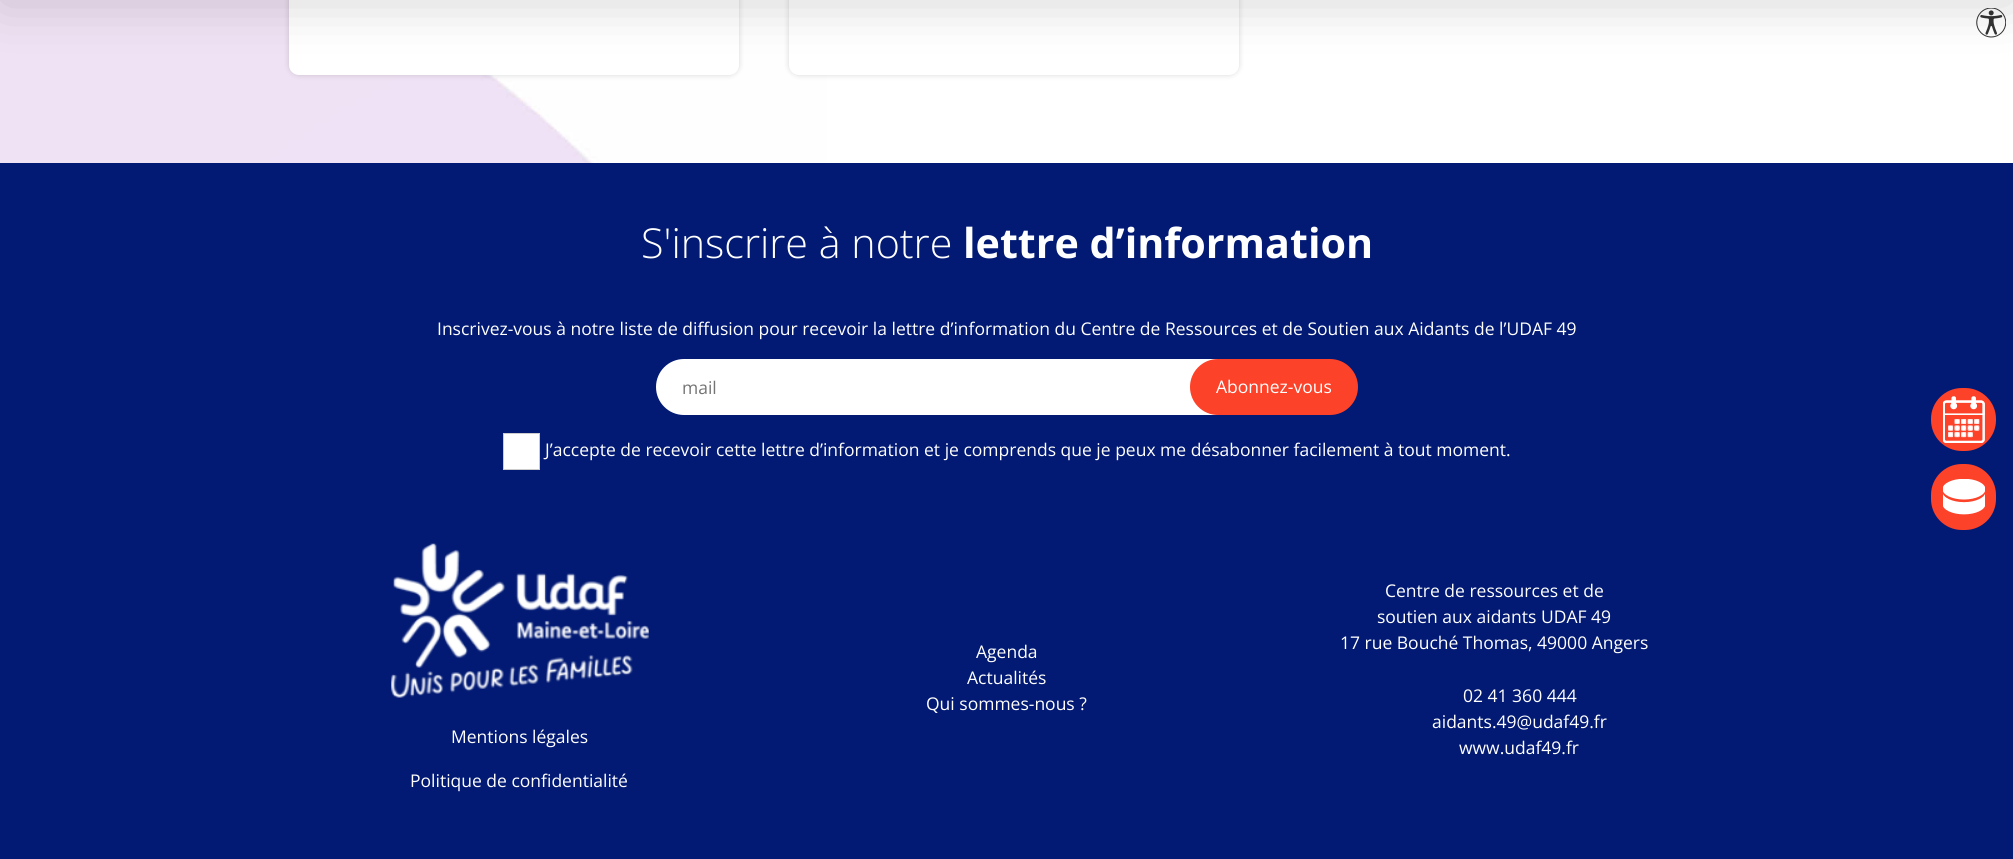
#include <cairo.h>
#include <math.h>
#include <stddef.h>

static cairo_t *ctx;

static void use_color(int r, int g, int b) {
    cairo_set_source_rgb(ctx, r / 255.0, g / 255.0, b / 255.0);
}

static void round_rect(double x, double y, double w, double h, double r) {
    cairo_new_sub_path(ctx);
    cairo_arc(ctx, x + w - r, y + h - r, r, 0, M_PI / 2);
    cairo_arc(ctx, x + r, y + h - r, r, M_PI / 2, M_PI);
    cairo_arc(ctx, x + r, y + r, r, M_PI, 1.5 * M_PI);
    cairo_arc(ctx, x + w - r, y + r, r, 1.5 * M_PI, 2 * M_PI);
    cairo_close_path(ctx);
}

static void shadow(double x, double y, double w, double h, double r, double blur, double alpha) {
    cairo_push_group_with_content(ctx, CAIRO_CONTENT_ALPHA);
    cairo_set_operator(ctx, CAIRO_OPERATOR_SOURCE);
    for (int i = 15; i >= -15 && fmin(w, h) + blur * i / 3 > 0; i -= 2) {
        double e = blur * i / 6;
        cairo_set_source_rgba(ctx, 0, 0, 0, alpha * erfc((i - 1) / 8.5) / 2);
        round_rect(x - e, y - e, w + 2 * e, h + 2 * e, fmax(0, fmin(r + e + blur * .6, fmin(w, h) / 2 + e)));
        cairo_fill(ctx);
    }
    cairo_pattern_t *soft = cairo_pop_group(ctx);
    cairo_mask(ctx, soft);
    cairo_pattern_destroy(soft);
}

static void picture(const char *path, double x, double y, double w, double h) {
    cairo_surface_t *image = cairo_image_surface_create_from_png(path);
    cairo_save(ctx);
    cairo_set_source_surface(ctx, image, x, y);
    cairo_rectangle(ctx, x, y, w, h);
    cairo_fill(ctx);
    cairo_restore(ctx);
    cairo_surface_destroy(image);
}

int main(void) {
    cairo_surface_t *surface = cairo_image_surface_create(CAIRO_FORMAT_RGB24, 2013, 859);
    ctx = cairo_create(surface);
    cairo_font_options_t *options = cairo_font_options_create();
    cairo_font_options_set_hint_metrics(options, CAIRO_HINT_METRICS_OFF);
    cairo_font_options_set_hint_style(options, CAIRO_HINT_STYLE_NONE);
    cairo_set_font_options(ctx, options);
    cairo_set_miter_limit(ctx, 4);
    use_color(255, 255, 255);
    cairo_paint(ctx);
    picture("img1.png", 0, 0, 827, 163);
    use_color(0, 0, 0);
    shadow(289, -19, 450, 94, 10, 3, 0.15);
    use_color(255, 255, 255);
    round_rect(289, -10, 450, 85, 10);
    cairo_fill(ctx);
    use_color(0, 0, 0);
    shadow(789, -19, 450, 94, 10, 3, 0.15);
    use_color(255, 255, 255);
    round_rect(789, -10, 450, 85, 10);
    cairo_fill(ctx);
    picture("img2.png", 1976, 8, 30, 30);
    use_color(0, 0, 0);
    shadow(0, -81, 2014, 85, 0, 27, 0.16);
    use_color(2, 26, 115);
    cairo_rectangle(ctx, 0, 163, 2013, 696);
    cairo_fill(ctx);
    cairo_select_font_face(ctx, "Open Sans Light", CAIRO_FONT_SLANT_NORMAL, CAIRO_FONT_WEIGHT_NORMAL);
    cairo_set_font_size(ctx, 41.25);
    use_color(255, 255, 255);
    cairo_move_to(ctx, 641, 258);
    cairo_show_text(ctx, "S'inscrire à notre");
    cairo_select_font_face(ctx, "Open Sans", CAIRO_FONT_SLANT_NORMAL, CAIRO_FONT_WEIGHT_BOLD);
    cairo_move_to(ctx, 963, 258);
    cairo_show_text(ctx, "lettre d’information");
    cairo_select_font_face(ctx, "Open Sans", CAIRO_FONT_SLANT_NORMAL, CAIRO_FONT_WEIGHT_NORMAL);
    cairo_set_font_size(ctx, 17.5);
    cairo_move_to(ctx, 437, 335);
    cairo_show_text(ctx, "Inscrivez-vous à notre liste de diffusion pour recevoir la lettre d’information du Centre de Ressources et de Soutien aux Aidants de l’UDAF 49");
    round_rect(656, 359, 604, 56, 28);
    cairo_fill(ctx);
    use_color(116, 116, 116);
    cairo_move_to(ctx, 682, 394);
    cairo_show_text(ctx, "mail");
    use_color(252, 66, 41);
    round_rect(1190, 359, 168, 56, 28);
    cairo_fill(ctx);
    use_color(255, 255, 255);
    cairo_move_to(ctx, 1216, 393);
    cairo_show_text(ctx, "Abonnez-vous");
    cairo_rectangle(ctx, 503.5, 433.5, 36, 36);
    cairo_fill_preserve(ctx);
    use_color(204, 204, 204);
    cairo_set_line_width(ctx, 1);
    cairo_stroke(ctx);
    use_color(255, 255, 255);
    cairo_move_to(ctx, 545, 456);
    cairo_show_text(ctx, "J’accepte de recevoir cette lettre d’information et je comprends que je peux me désabonner facilement à tout moment.");
    cairo_move_to(ctx, 976, 658);
    cairo_show_text(ctx, "Agenda");
    cairo_move_to(ctx, 967, 684);
    cairo_show_text(ctx, "Actualités");
    cairo_move_to(ctx, 926, 710);
    cairo_show_text(ctx, "Qui sommes-nous ?");
    cairo_move_to(ctx, 1385, 597);
    cairo_show_text(ctx, "Centre de ressources et de");
    cairo_move_to(ctx, 1377, 623);
    cairo_show_text(ctx, "soutien aux aidants UDAF 49");
    cairo_move_to(ctx, 1340, 649);
    cairo_show_text(ctx, "17 rue Bouché Thomas, 49000 Angers");
    cairo_move_to(ctx, 1463, 702);
    cairo_show_text(ctx, "02 41 360 444");
    cairo_move_to(ctx, 1432, 728);
    cairo_show_text(ctx, "aidants.49@udaf49.fr");
    cairo_move_to(ctx, 1459, 754);
    cairo_show_text(ctx, "www.udaf49.fr");
    picture("img3.png", 391, 543, 258, 155);
    cairo_move_to(ctx, 451, 743);
    cairo_show_text(ctx, "Mentions légales");
    cairo_move_to(ctx, 410, 787);
    cairo_show_text(ctx, "Politique de confidentialité");
    use_color(252, 66, 41);
    round_rect(1931, 388, 65, 63, 31);
    cairo_fill(ctx);
    picture("img4.png", 1943, 396, 42, 47);
    round_rect(1931, 464, 65, 66, 31);
    cairo_fill(ctx);
    picture("img5.png", 1943, 479, 42, 36);
    cairo_surface_write_to_png(surface, "result.png");
    cairo_font_options_destroy(options);
    cairo_destroy(ctx);
    cairo_surface_destroy(surface);
    return 0;
}
